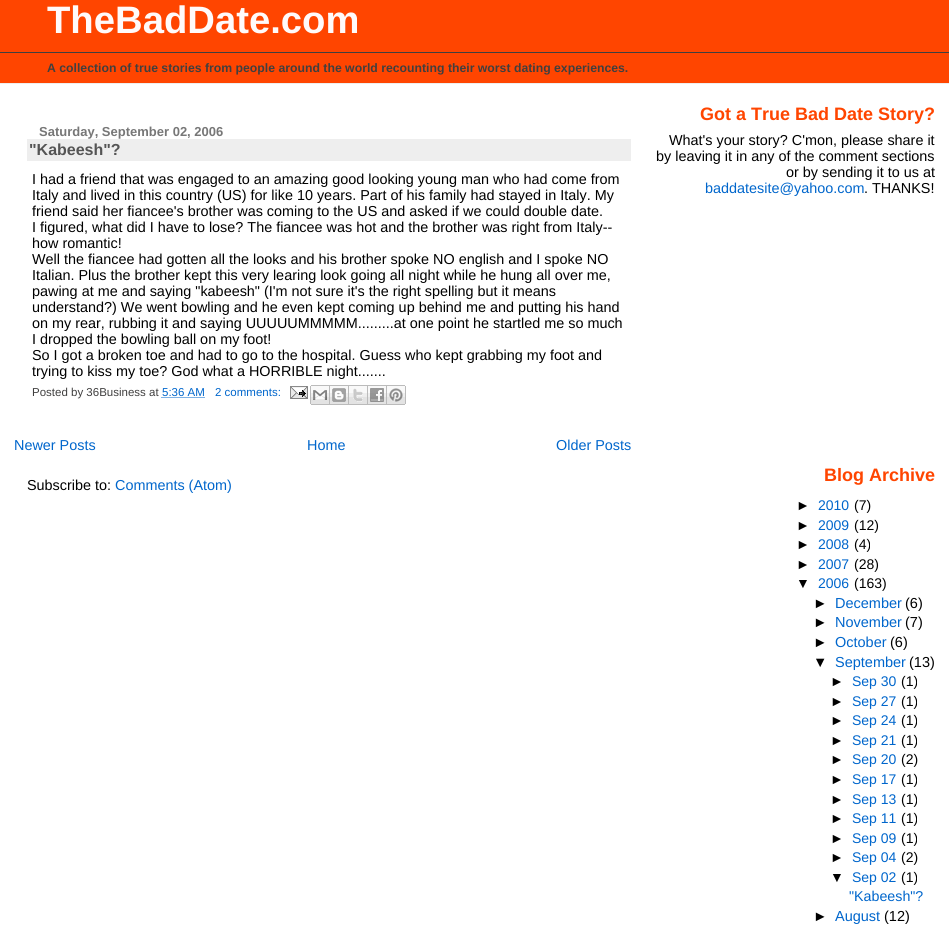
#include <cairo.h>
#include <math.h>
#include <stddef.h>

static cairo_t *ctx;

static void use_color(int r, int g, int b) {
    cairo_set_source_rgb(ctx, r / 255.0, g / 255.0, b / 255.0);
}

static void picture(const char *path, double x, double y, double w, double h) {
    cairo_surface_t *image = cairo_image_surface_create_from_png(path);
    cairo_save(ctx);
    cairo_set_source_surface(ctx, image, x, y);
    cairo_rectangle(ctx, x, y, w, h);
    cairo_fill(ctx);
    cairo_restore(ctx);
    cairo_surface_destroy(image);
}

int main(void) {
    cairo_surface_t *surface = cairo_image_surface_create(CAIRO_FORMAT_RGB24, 949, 935);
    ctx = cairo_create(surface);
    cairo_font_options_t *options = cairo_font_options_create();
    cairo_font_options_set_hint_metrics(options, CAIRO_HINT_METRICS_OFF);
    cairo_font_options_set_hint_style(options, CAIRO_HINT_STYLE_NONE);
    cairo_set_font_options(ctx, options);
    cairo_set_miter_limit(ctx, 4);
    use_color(255, 255, 255);
    cairo_paint(ctx);
    use_color(255, 69, 0);
    cairo_rectangle(ctx, 0, 0, 949, 83);
    cairo_fill(ctx);
    use_color(238, 238, 238);
    cairo_rectangle(ctx, 0, 83, 949, 1);
    cairo_fill(ctx);
    use_color(64, 63, 63);
    cairo_rectangle(ctx, 0, 52, 949, 1);
    cairo_fill(ctx);
    cairo_select_font_face(ctx, "Liberation Sans", CAIRO_FONT_SLANT_NORMAL, CAIRO_FONT_WEIGHT_BOLD);
    cairo_set_font_size(ctx, 38.25);
    use_color(255, 250, 250);
    cairo_move_to(ctx, 47, 33);
    cairo_show_text(ctx, "TheBadDate.com");
    cairo_set_font_size(ctx, 12.25);
    use_color(64, 63, 63);
    cairo_move_to(ctx, 47, 72);
    cairo_show_text(ctx, "A collection of true stories from people around the world recounting their worst dating experiences.");
    cairo_set_font_size(ctx, 13);
    use_color(119, 119, 119);
    cairo_move_to(ctx, 39, 136);
    cairo_show_text(ctx, "Saturday, September 02, 2006");
    use_color(238, 238, 238);
    cairo_rectangle(ctx, 27, 139, 604, 22);
    cairo_fill(ctx);
    cairo_set_font_size(ctx, 16);
    use_color(85, 85, 85);
    cairo_move_to(ctx, 29, 155);
    cairo_show_text(ctx, "\"Kabeesh\"?");
    cairo_select_font_face(ctx, "Liberation Sans", CAIRO_FONT_SLANT_NORMAL, CAIRO_FONT_WEIGHT_NORMAL);
    cairo_set_font_size(ctx, 14.4);
    use_color(0, 0, 0);
    cairo_move_to(ctx, 32, 184);
    cairo_show_text(ctx, "I had a friend that was engaged to an amazing good looking young man who had come from");
    cairo_move_to(ctx, 32, 200);
    cairo_show_text(ctx, "Italy and lived in this country (US) for like 10 years. Part of his family had stayed in Italy. My");
    cairo_move_to(ctx, 32, 216);
    cairo_show_text(ctx, "friend said her fiancee's brother was coming to the US and asked if we could double date.");
    cairo_move_to(ctx, 32, 232);
    cairo_show_text(ctx, "I figured, what did I have to lose? The fiancee was hot and the brother was right from Italy--");
    cairo_move_to(ctx, 32, 248);
    cairo_show_text(ctx, "how romantic!");
    cairo_move_to(ctx, 32, 264);
    cairo_show_text(ctx, "Well the fiancee had gotten all the looks and his brother spoke NO english and I spoke NO");
    cairo_move_to(ctx, 32, 280);
    cairo_show_text(ctx, "Italian. Plus the brother kept this very learing look going all night while he hung all over me,");
    cairo_move_to(ctx, 32, 296);
    cairo_show_text(ctx, "pawing at me and saying \"kabeesh\" (I'm not sure it's the right spelling but it means");
    cairo_move_to(ctx, 32, 312);
    cairo_show_text(ctx, "understand?) We went bowling and he even kept coming up behind me and putting his hand");
    cairo_move_to(ctx, 32, 328);
    cairo_show_text(ctx, "on my rear, rubbing it and saying UUUUUMMMMM.........at one point he startled me so much");
    cairo_move_to(ctx, 32, 344);
    cairo_show_text(ctx, "I dropped the bowling ball on my foot!");
    cairo_move_to(ctx, 32, 360);
    cairo_show_text(ctx, "So I got a broken toe and had to go to the hospital. Guess who kept grabbing my foot and");
    cairo_move_to(ctx, 32, 376);
    cairo_show_text(ctx, "trying to kiss my toe? God what a HORRIBLE night.......");
    cairo_set_font_size(ctx, 11.5);
    use_color(64, 63, 63);
    cairo_move_to(ctx, 32, 396);
    cairo_show_text(ctx, "Posted by 36Business at");
    use_color(0, 102, 204);
    cairo_move_to(ctx, 162, 396);
    cairo_show_text(ctx, "5:36 AM");
    cairo_new_path(ctx);
    cairo_move_to(ctx, 161.5, 397.5);
    cairo_line_to(ctx, 204.5, 397.5);
    cairo_set_line_width(ctx, 1);
    cairo_set_dash(ctx, (double[]){1, 1}, 2, 0);
    cairo_stroke(ctx);
    cairo_move_to(ctx, 215, 396);
    cairo_show_text(ctx, "2 comments:");
    picture("img1.png", 290, 386, 18, 13);
    picture("img2.png", 310, 385, 20, 20);
    picture("img3.png", 330, 385, 19, 20);
    picture("img4.png", 349, 385, 19, 20);
    picture("img5.png", 368, 385, 19, 20);
    picture("img6.png", 387, 385, 19, 20);
    cairo_set_font_size(ctx, 14.4);
    cairo_move_to(ctx, 14, 450);
    cairo_show_text(ctx, "Newer Posts");
    cairo_move_to(ctx, 307, 450);
    cairo_show_text(ctx, "Home");
    cairo_move_to(ctx, 556, 450);
    cairo_show_text(ctx, "Older Posts");
    use_color(0, 0, 0);
    cairo_move_to(ctx, 27, 490);
    cairo_show_text(ctx, "Subscribe to:");
    use_color(0, 102, 204);
    cairo_move_to(ctx, 115, 490);
    cairo_show_text(ctx, "Comments (Atom)");
    cairo_select_font_face(ctx, "Liberation Sans", CAIRO_FONT_SLANT_NORMAL, CAIRO_FONT_WEIGHT_BOLD);
    cairo_set_font_size(ctx, 18);
    use_color(255, 69, 0);
    cairo_move_to(ctx, 700, 120);
    cairo_show_text(ctx, "Got a True Bad Date Story?");
    cairo_select_font_face(ctx, "Liberation Sans", CAIRO_FONT_SLANT_NORMAL, CAIRO_FONT_WEIGHT_NORMAL);
    cairo_set_font_size(ctx, 14.4);
    use_color(0, 0, 0);
    cairo_move_to(ctx, 669, 145);
    cairo_show_text(ctx, "What's your story? C'mon, please share it");
    cairo_move_to(ctx, 656, 161);
    cairo_show_text(ctx, "by leaving it in any of the comment sections");
    cairo_move_to(ctx, 786, 177);
    cairo_show_text(ctx, "or by sending it to us at");
    use_color(0, 102, 204);
    cairo_move_to(ctx, 705, 193);
    cairo_show_text(ctx, "baddatesite@yahoo.com");
    use_color(0, 0, 0);
    cairo_move_to(ctx, 864, 193);
    cairo_show_text(ctx, ". THANKS!");
    cairo_select_font_face(ctx, "Liberation Sans", CAIRO_FONT_SLANT_NORMAL, CAIRO_FONT_WEIGHT_BOLD);
    cairo_set_font_size(ctx, 18);
    use_color(255, 69, 0);
    cairo_move_to(ctx, 824, 481);
    cairo_show_text(ctx, "Blog Archive");
    cairo_select_font_face(ctx, "Liberation Sans", CAIRO_FONT_SLANT_NORMAL, CAIRO_FONT_WEIGHT_NORMAL);
    cairo_set_font_size(ctx, 14);
    use_color(0, 0, 0);
    cairo_move_to(ctx, 796, 510);
    cairo_show_text(ctx, "►");
    use_color(0, 102, 204);
    cairo_move_to(ctx, 818, 510);
    cairo_show_text(ctx, "2010");
    use_color(0, 0, 0);
    cairo_move_to(ctx, 854, 510);
    cairo_show_text(ctx, "(7)");
    cairo_move_to(ctx, 796, 530);
    cairo_show_text(ctx, "►");
    use_color(0, 102, 204);
    cairo_move_to(ctx, 818, 530);
    cairo_show_text(ctx, "2009");
    use_color(0, 0, 0);
    cairo_move_to(ctx, 854, 530);
    cairo_show_text(ctx, "(12)");
    cairo_move_to(ctx, 796, 549);
    cairo_show_text(ctx, "►");
    use_color(0, 102, 204);
    cairo_move_to(ctx, 818, 549);
    cairo_show_text(ctx, "2008");
    use_color(0, 0, 0);
    cairo_move_to(ctx, 854, 549);
    cairo_show_text(ctx, "(4)");
    cairo_move_to(ctx, 796, 569);
    cairo_show_text(ctx, "►");
    use_color(0, 102, 204);
    cairo_move_to(ctx, 818, 569);
    cairo_show_text(ctx, "2007");
    use_color(0, 0, 0);
    cairo_move_to(ctx, 854, 569);
    cairo_show_text(ctx, "(28)");
    cairo_move_to(ctx, 796, 588);
    cairo_show_text(ctx, "▼");
    use_color(0, 102, 204);
    cairo_move_to(ctx, 818, 588);
    cairo_show_text(ctx, "2006");
    use_color(0, 0, 0);
    cairo_move_to(ctx, 854, 588);
    cairo_show_text(ctx, "(163)");
    cairo_set_font_size(ctx, 14.5);
    cairo_move_to(ctx, 813, 608);
    cairo_show_text(ctx, "►");
    use_color(0, 102, 204);
    cairo_move_to(ctx, 835, 608);
    cairo_show_text(ctx, "December");
    use_color(0, 0, 0);
    cairo_move_to(ctx, 905, 608);
    cairo_show_text(ctx, "(6)");
    cairo_move_to(ctx, 813, 627);
    cairo_show_text(ctx, "►");
    use_color(0, 102, 204);
    cairo_move_to(ctx, 835, 627);
    cairo_show_text(ctx, "November");
    use_color(0, 0, 0);
    cairo_move_to(ctx, 905, 627);
    cairo_show_text(ctx, "(7)");
    cairo_move_to(ctx, 813, 647);
    cairo_show_text(ctx, "►");
    use_color(0, 102, 204);
    cairo_move_to(ctx, 835, 647);
    cairo_show_text(ctx, "October");
    use_color(0, 0, 0);
    cairo_move_to(ctx, 890, 647);
    cairo_show_text(ctx, "(6)");
    cairo_move_to(ctx, 813, 667);
    cairo_show_text(ctx, "▼");
    use_color(0, 102, 204);
    cairo_move_to(ctx, 835, 667);
    cairo_show_text(ctx, "September");
    use_color(0, 0, 0);
    cairo_move_to(ctx, 909, 667);
    cairo_show_text(ctx, "(13)");
    cairo_set_font_size(ctx, 14);
    cairo_move_to(ctx, 830, 686);
    cairo_show_text(ctx, "►");
    use_color(0, 102, 204);
    cairo_move_to(ctx, 852, 686);
    cairo_show_text(ctx, "Sep 30");
    use_color(0, 0, 0);
    cairo_move_to(ctx, 901, 686);
    cairo_show_text(ctx, "(1)");
    cairo_move_to(ctx, 830, 706);
    cairo_show_text(ctx, "►");
    use_color(0, 102, 204);
    cairo_move_to(ctx, 852, 706);
    cairo_show_text(ctx, "Sep 27");
    use_color(0, 0, 0);
    cairo_move_to(ctx, 901, 706);
    cairo_show_text(ctx, "(1)");
    cairo_move_to(ctx, 830, 725);
    cairo_show_text(ctx, "►");
    use_color(0, 102, 204);
    cairo_move_to(ctx, 852, 725);
    cairo_show_text(ctx, "Sep 24");
    use_color(0, 0, 0);
    cairo_move_to(ctx, 901, 725);
    cairo_show_text(ctx, "(1)");
    cairo_move_to(ctx, 830, 745);
    cairo_show_text(ctx, "►");
    use_color(0, 102, 204);
    cairo_move_to(ctx, 852, 745);
    cairo_show_text(ctx, "Sep 21");
    use_color(0, 0, 0);
    cairo_move_to(ctx, 901, 745);
    cairo_show_text(ctx, "(1)");
    cairo_move_to(ctx, 830, 764);
    cairo_show_text(ctx, "►");
    use_color(0, 102, 204);
    cairo_move_to(ctx, 852, 764);
    cairo_show_text(ctx, "Sep 20");
    use_color(0, 0, 0);
    cairo_move_to(ctx, 901, 764);
    cairo_show_text(ctx, "(2)");
    cairo_move_to(ctx, 830, 784);
    cairo_show_text(ctx, "►");
    use_color(0, 102, 204);
    cairo_move_to(ctx, 852, 784);
    cairo_show_text(ctx, "Sep 17");
    use_color(0, 0, 0);
    cairo_move_to(ctx, 901, 784);
    cairo_show_text(ctx, "(1)");
    cairo_move_to(ctx, 830, 804);
    cairo_show_text(ctx, "►");
    use_color(0, 102, 204);
    cairo_move_to(ctx, 852, 804);
    cairo_show_text(ctx, "Sep 13");
    use_color(0, 0, 0);
    cairo_move_to(ctx, 901, 804);
    cairo_show_text(ctx, "(1)");
    cairo_move_to(ctx, 830, 823);
    cairo_show_text(ctx, "►");
    use_color(0, 102, 204);
    cairo_move_to(ctx, 852, 823);
    cairo_show_text(ctx, "Sep 11");
    use_color(0, 0, 0);
    cairo_move_to(ctx, 901, 823);
    cairo_show_text(ctx, "(1)");
    cairo_move_to(ctx, 830, 843);
    cairo_show_text(ctx, "►");
    use_color(0, 102, 204);
    cairo_move_to(ctx, 852, 843);
    cairo_show_text(ctx, "Sep 09");
    use_color(0, 0, 0);
    cairo_move_to(ctx, 901, 843);
    cairo_show_text(ctx, "(1)");
    cairo_move_to(ctx, 830, 862);
    cairo_show_text(ctx, "►");
    use_color(0, 102, 204);
    cairo_move_to(ctx, 852, 862);
    cairo_show_text(ctx, "Sep 04");
    use_color(0, 0, 0);
    cairo_move_to(ctx, 901, 862);
    cairo_show_text(ctx, "(2)");
    cairo_move_to(ctx, 830, 882);
    cairo_show_text(ctx, "▼");
    use_color(0, 102, 204);
    cairo_move_to(ctx, 852, 882);
    cairo_show_text(ctx, "Sep 02");
    use_color(0, 0, 0);
    cairo_move_to(ctx, 901, 882);
    cairo_show_text(ctx, "(1)");
    cairo_set_font_size(ctx, 14.25);
    use_color(0, 102, 204);
    cairo_move_to(ctx, 849, 901);
    cairo_show_text(ctx, "\"Kabeesh\"?");
    cairo_set_font_size(ctx, 14.5);
    use_color(0, 0, 0);
    cairo_move_to(ctx, 813, 921);
    cairo_show_text(ctx, "►");
    use_color(0, 102, 204);
    cairo_move_to(ctx, 835, 921);
    cairo_show_text(ctx, "August");
    use_color(0, 0, 0);
    cairo_move_to(ctx, 884, 921);
    cairo_show_text(ctx, "(12)");
    cairo_surface_write_to_png(surface, "result.png");
    cairo_font_options_destroy(options);
    cairo_destroy(ctx);
    cairo_surface_destroy(surface);
    return 0;
}
